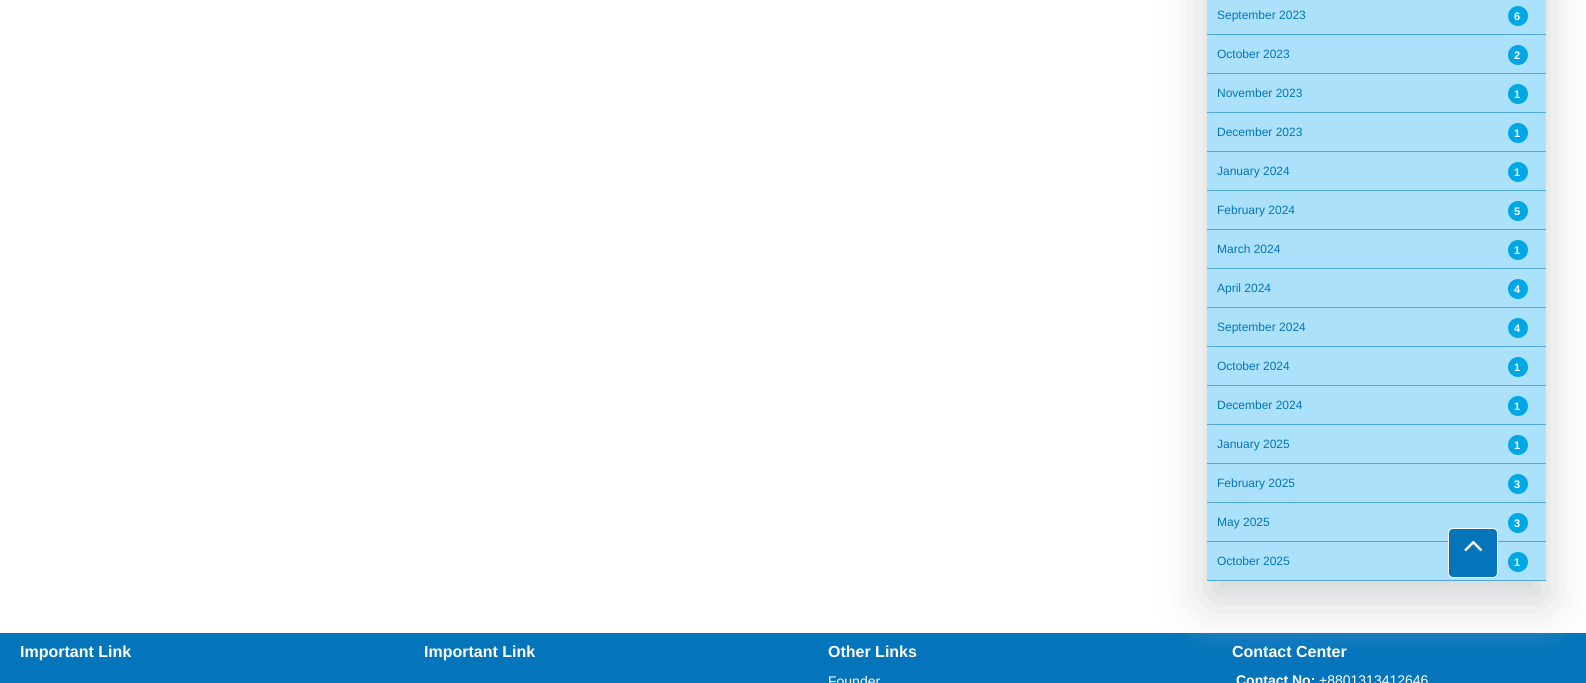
#include <cairo.h>
#include <math.h>
#include <stddef.h>

static cairo_t *ctx;

static void use_color(int r, int g, int b) {
    cairo_set_source_rgb(ctx, r / 255.0, g / 255.0, b / 255.0);
}

static void round_rect(double x, double y, double w, double h, double r) {
    cairo_new_sub_path(ctx);
    cairo_arc(ctx, x + w - r, y + h - r, r, 0, M_PI / 2);
    cairo_arc(ctx, x + r, y + h - r, r, M_PI / 2, M_PI);
    cairo_arc(ctx, x + r, y + r, r, M_PI, 1.5 * M_PI);
    cairo_arc(ctx, x + w - r, y + r, r, 1.5 * M_PI, 2 * M_PI);
    cairo_close_path(ctx);
}

static void shadow(double x, double y, double w, double h, double r, double blur, double alpha) {
    cairo_push_group_with_content(ctx, CAIRO_CONTENT_ALPHA);
    cairo_set_operator(ctx, CAIRO_OPERATOR_SOURCE);
    for (int i = 15; i >= -15 && fmin(w, h) + blur * i / 3 > 0; i -= 2) {
        double e = blur * i / 6;
        cairo_set_source_rgba(ctx, 0, 0, 0, alpha * erfc((i - 1) / 8.5) / 2);
        round_rect(x - e, y - e, w + 2 * e, h + 2 * e, fmax(0, fmin(r + e + blur * .6, fmin(w, h) / 2 + e)));
        cairo_fill(ctx);
    }
    cairo_pattern_t *soft = cairo_pop_group(ctx);
    cairo_mask(ctx, soft);
    cairo_pattern_destroy(soft);
}

static void picture(const char *path, double x, double y, double w, double h) {
    cairo_surface_t *image = cairo_image_surface_create_from_png(path);
    cairo_save(ctx);
    cairo_set_source_surface(ctx, image, x, y);
    cairo_rectangle(ctx, x, y, w, h);
    cairo_fill(ctx);
    cairo_restore(ctx);
    cairo_surface_destroy(image);
}

int main(void) {
    cairo_surface_t *surface = cairo_image_surface_create(CAIRO_FORMAT_RGB24, 1586, 683);
    ctx = cairo_create(surface);
    cairo_font_options_t *options = cairo_font_options_create();
    cairo_font_options_set_hint_metrics(options, CAIRO_HINT_METRICS_OFF);
    cairo_font_options_set_hint_style(options, CAIRO_HINT_STYLE_NONE);
    cairo_set_font_options(ctx, options);
    cairo_set_miter_limit(ctx, 4);
    use_color(255, 255, 255);
    cairo_paint(ctx);
    use_color(4, 116, 187);
    cairo_rectangle(ctx, 0, 633, 1586, 50);
    cairo_fill(ctx);
    use_color(209, 211, 212);
    shadow(1207, -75, 339, 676, 0, 25, 1);
    use_color(171, 225, 250);
    cairo_rectangle(ctx, 1207, 0, 339, 34);
    cairo_fill(ctx);
    use_color(79, 167, 221);
    cairo_rectangle(ctx, 1207, 34, 339, 1);
    cairo_fill(ctx);
    cairo_select_font_face(ctx, "Liberation Sans", CAIRO_FONT_SLANT_NORMAL, CAIRO_FONT_WEIGHT_NORMAL);
    cairo_set_font_size(ctx, 12);
    use_color(4, 116, 187);
    cairo_move_to(ctx, 1217, 19);
    cairo_show_text(ctx, "September 2023");
    use_color(0, 167, 229);
    cairo_new_path(ctx);
    cairo_arc(ctx, 1518, 16, 10, 0, 2 * M_PI);
    cairo_fill(ctx);
    cairo_select_font_face(ctx, "Liberation Sans", CAIRO_FONT_SLANT_NORMAL, CAIRO_FONT_WEIGHT_BOLD);
    cairo_set_font_size(ctx, 11);
    use_color(255, 255, 255);
    cairo_move_to(ctx, 1514, 20);
    cairo_show_text(ctx, "6");
    use_color(171, 225, 250);
    cairo_rectangle(ctx, 1207, 35, 339, 38);
    cairo_fill(ctx);
    use_color(79, 167, 221);
    cairo_rectangle(ctx, 1207, 73, 339, 1);
    cairo_fill(ctx);
    cairo_select_font_face(ctx, "Liberation Sans", CAIRO_FONT_SLANT_NORMAL, CAIRO_FONT_WEIGHT_NORMAL);
    cairo_set_font_size(ctx, 12);
    use_color(4, 116, 187);
    cairo_move_to(ctx, 1217, 58);
    cairo_show_text(ctx, "October 2023");
    use_color(0, 167, 229);
    cairo_new_path(ctx);
    cairo_arc(ctx, 1518, 55, 10, 0, 2 * M_PI);
    cairo_fill(ctx);
    cairo_select_font_face(ctx, "Liberation Sans", CAIRO_FONT_SLANT_NORMAL, CAIRO_FONT_WEIGHT_BOLD);
    cairo_set_font_size(ctx, 11);
    use_color(255, 255, 255);
    cairo_move_to(ctx, 1514, 59);
    cairo_show_text(ctx, "2");
    use_color(171, 225, 250);
    cairo_rectangle(ctx, 1207, 74, 339, 38);
    cairo_fill(ctx);
    use_color(79, 167, 221);
    cairo_rectangle(ctx, 1207, 112, 339, 1);
    cairo_fill(ctx);
    cairo_select_font_face(ctx, "Liberation Sans", CAIRO_FONT_SLANT_NORMAL, CAIRO_FONT_WEIGHT_NORMAL);
    cairo_set_font_size(ctx, 12);
    use_color(4, 116, 187);
    cairo_move_to(ctx, 1217, 97);
    cairo_show_text(ctx, "November 2023");
    use_color(0, 167, 229);
    cairo_new_path(ctx);
    cairo_arc(ctx, 1518, 94, 10, 0, 2 * M_PI);
    cairo_fill(ctx);
    cairo_select_font_face(ctx, "Liberation Sans", CAIRO_FONT_SLANT_NORMAL, CAIRO_FONT_WEIGHT_BOLD);
    cairo_set_font_size(ctx, 11);
    use_color(255, 255, 255);
    cairo_move_to(ctx, 1514, 98);
    cairo_show_text(ctx, "1");
    use_color(171, 225, 250);
    cairo_rectangle(ctx, 1207, 113, 339, 38);
    cairo_fill(ctx);
    use_color(79, 167, 221);
    cairo_rectangle(ctx, 1207, 151, 339, 1);
    cairo_fill(ctx);
    cairo_select_font_face(ctx, "Liberation Sans", CAIRO_FONT_SLANT_NORMAL, CAIRO_FONT_WEIGHT_NORMAL);
    cairo_set_font_size(ctx, 12);
    use_color(4, 116, 187);
    cairo_move_to(ctx, 1217, 136);
    cairo_show_text(ctx, "December 2023");
    use_color(0, 167, 229);
    cairo_new_path(ctx);
    cairo_arc(ctx, 1518, 133, 10, 0, 2 * M_PI);
    cairo_fill(ctx);
    cairo_select_font_face(ctx, "Liberation Sans", CAIRO_FONT_SLANT_NORMAL, CAIRO_FONT_WEIGHT_BOLD);
    cairo_set_font_size(ctx, 11);
    use_color(255, 255, 255);
    cairo_move_to(ctx, 1514, 137);
    cairo_show_text(ctx, "1");
    use_color(171, 225, 250);
    cairo_rectangle(ctx, 1207, 152, 339, 38);
    cairo_fill(ctx);
    use_color(79, 167, 221);
    cairo_rectangle(ctx, 1207, 190, 339, 1);
    cairo_fill(ctx);
    cairo_select_font_face(ctx, "Liberation Sans", CAIRO_FONT_SLANT_NORMAL, CAIRO_FONT_WEIGHT_NORMAL);
    cairo_set_font_size(ctx, 12);
    use_color(4, 116, 187);
    cairo_move_to(ctx, 1217, 175);
    cairo_show_text(ctx, "January 2024");
    use_color(0, 167, 229);
    cairo_new_path(ctx);
    cairo_arc(ctx, 1518, 172, 10, 0, 2 * M_PI);
    cairo_fill(ctx);
    cairo_select_font_face(ctx, "Liberation Sans", CAIRO_FONT_SLANT_NORMAL, CAIRO_FONT_WEIGHT_BOLD);
    cairo_set_font_size(ctx, 11);
    use_color(255, 255, 255);
    cairo_move_to(ctx, 1514, 176);
    cairo_show_text(ctx, "1");
    use_color(171, 225, 250);
    cairo_rectangle(ctx, 1207, 191, 339, 38);
    cairo_fill(ctx);
    use_color(79, 167, 221);
    cairo_rectangle(ctx, 1207, 229, 339, 1);
    cairo_fill(ctx);
    cairo_select_font_face(ctx, "Liberation Sans", CAIRO_FONT_SLANT_NORMAL, CAIRO_FONT_WEIGHT_NORMAL);
    cairo_set_font_size(ctx, 12);
    use_color(4, 116, 187);
    cairo_move_to(ctx, 1217, 214);
    cairo_show_text(ctx, "February 2024");
    use_color(0, 167, 229);
    cairo_new_path(ctx);
    cairo_arc(ctx, 1518, 211, 10, 0, 2 * M_PI);
    cairo_fill(ctx);
    cairo_select_font_face(ctx, "Liberation Sans", CAIRO_FONT_SLANT_NORMAL, CAIRO_FONT_WEIGHT_BOLD);
    cairo_set_font_size(ctx, 11);
    use_color(255, 255, 255);
    cairo_move_to(ctx, 1514, 215);
    cairo_show_text(ctx, "5");
    use_color(171, 225, 250);
    cairo_rectangle(ctx, 1207, 230, 339, 38);
    cairo_fill(ctx);
    use_color(79, 167, 221);
    cairo_rectangle(ctx, 1207, 268, 339, 1);
    cairo_fill(ctx);
    cairo_select_font_face(ctx, "Liberation Sans", CAIRO_FONT_SLANT_NORMAL, CAIRO_FONT_WEIGHT_NORMAL);
    cairo_set_font_size(ctx, 12);
    use_color(4, 116, 187);
    cairo_move_to(ctx, 1217, 253);
    cairo_show_text(ctx, "March 2024");
    use_color(0, 167, 229);
    cairo_new_path(ctx);
    cairo_arc(ctx, 1518, 250, 10, 0, 2 * M_PI);
    cairo_fill(ctx);
    cairo_select_font_face(ctx, "Liberation Sans", CAIRO_FONT_SLANT_NORMAL, CAIRO_FONT_WEIGHT_BOLD);
    cairo_set_font_size(ctx, 11);
    use_color(255, 255, 255);
    cairo_move_to(ctx, 1514, 254);
    cairo_show_text(ctx, "1");
    use_color(171, 225, 250);
    cairo_rectangle(ctx, 1207, 269, 339, 38);
    cairo_fill(ctx);
    use_color(79, 167, 221);
    cairo_rectangle(ctx, 1207, 307, 339, 1);
    cairo_fill(ctx);
    cairo_select_font_face(ctx, "Liberation Sans", CAIRO_FONT_SLANT_NORMAL, CAIRO_FONT_WEIGHT_NORMAL);
    cairo_set_font_size(ctx, 12);
    use_color(4, 116, 187);
    cairo_move_to(ctx, 1217, 292);
    cairo_show_text(ctx, "April 2024");
    use_color(0, 167, 229);
    cairo_new_path(ctx);
    cairo_arc(ctx, 1518, 289, 10, 0, 2 * M_PI);
    cairo_fill(ctx);
    cairo_select_font_face(ctx, "Liberation Sans", CAIRO_FONT_SLANT_NORMAL, CAIRO_FONT_WEIGHT_BOLD);
    cairo_set_font_size(ctx, 11);
    use_color(255, 255, 255);
    cairo_move_to(ctx, 1514, 293);
    cairo_show_text(ctx, "4");
    use_color(171, 225, 250);
    cairo_rectangle(ctx, 1207, 308, 339, 38);
    cairo_fill(ctx);
    use_color(79, 167, 221);
    cairo_rectangle(ctx, 1207, 346, 339, 1);
    cairo_fill(ctx);
    cairo_select_font_face(ctx, "Liberation Sans", CAIRO_FONT_SLANT_NORMAL, CAIRO_FONT_WEIGHT_NORMAL);
    cairo_set_font_size(ctx, 12);
    use_color(4, 116, 187);
    cairo_move_to(ctx, 1217, 331);
    cairo_show_text(ctx, "September 2024");
    use_color(0, 167, 229);
    cairo_new_path(ctx);
    cairo_arc(ctx, 1518, 328, 10, 0, 2 * M_PI);
    cairo_fill(ctx);
    cairo_select_font_face(ctx, "Liberation Sans", CAIRO_FONT_SLANT_NORMAL, CAIRO_FONT_WEIGHT_BOLD);
    cairo_set_font_size(ctx, 11);
    use_color(255, 255, 255);
    cairo_move_to(ctx, 1514, 332);
    cairo_show_text(ctx, "4");
    use_color(171, 225, 250);
    cairo_rectangle(ctx, 1207, 347, 339, 38);
    cairo_fill(ctx);
    use_color(79, 167, 221);
    cairo_rectangle(ctx, 1207, 385, 339, 1);
    cairo_fill(ctx);
    cairo_select_font_face(ctx, "Liberation Sans", CAIRO_FONT_SLANT_NORMAL, CAIRO_FONT_WEIGHT_NORMAL);
    cairo_set_font_size(ctx, 12);
    use_color(4, 116, 187);
    cairo_move_to(ctx, 1217, 370);
    cairo_show_text(ctx, "October 2024");
    use_color(0, 167, 229);
    cairo_new_path(ctx);
    cairo_arc(ctx, 1518, 367, 10, 0, 2 * M_PI);
    cairo_fill(ctx);
    cairo_select_font_face(ctx, "Liberation Sans", CAIRO_FONT_SLANT_NORMAL, CAIRO_FONT_WEIGHT_BOLD);
    cairo_set_font_size(ctx, 11);
    use_color(255, 255, 255);
    cairo_move_to(ctx, 1514, 371);
    cairo_show_text(ctx, "1");
    use_color(171, 225, 250);
    cairo_rectangle(ctx, 1207, 386, 339, 38);
    cairo_fill(ctx);
    use_color(79, 167, 221);
    cairo_rectangle(ctx, 1207, 424, 339, 1);
    cairo_fill(ctx);
    cairo_select_font_face(ctx, "Liberation Sans", CAIRO_FONT_SLANT_NORMAL, CAIRO_FONT_WEIGHT_NORMAL);
    cairo_set_font_size(ctx, 12);
    use_color(4, 116, 187);
    cairo_move_to(ctx, 1217, 409);
    cairo_show_text(ctx, "December 2024");
    use_color(0, 167, 229);
    cairo_new_path(ctx);
    cairo_arc(ctx, 1518, 406, 10, 0, 2 * M_PI);
    cairo_fill(ctx);
    cairo_select_font_face(ctx, "Liberation Sans", CAIRO_FONT_SLANT_NORMAL, CAIRO_FONT_WEIGHT_BOLD);
    cairo_set_font_size(ctx, 11);
    use_color(255, 255, 255);
    cairo_move_to(ctx, 1514, 410);
    cairo_show_text(ctx, "1");
    use_color(171, 225, 250);
    cairo_rectangle(ctx, 1207, 425, 339, 38);
    cairo_fill(ctx);
    use_color(79, 167, 221);
    cairo_rectangle(ctx, 1207, 463, 339, 1);
    cairo_fill(ctx);
    cairo_select_font_face(ctx, "Liberation Sans", CAIRO_FONT_SLANT_NORMAL, CAIRO_FONT_WEIGHT_NORMAL);
    cairo_set_font_size(ctx, 12);
    use_color(4, 116, 187);
    cairo_move_to(ctx, 1217, 448);
    cairo_show_text(ctx, "January 2025");
    use_color(0, 167, 229);
    cairo_new_path(ctx);
    cairo_arc(ctx, 1518, 445, 10, 0, 2 * M_PI);
    cairo_fill(ctx);
    cairo_select_font_face(ctx, "Liberation Sans", CAIRO_FONT_SLANT_NORMAL, CAIRO_FONT_WEIGHT_BOLD);
    cairo_set_font_size(ctx, 11);
    use_color(255, 255, 255);
    cairo_move_to(ctx, 1514, 449);
    cairo_show_text(ctx, "1");
    use_color(171, 225, 250);
    cairo_rectangle(ctx, 1207, 464, 339, 38);
    cairo_fill(ctx);
    use_color(79, 167, 221);
    cairo_rectangle(ctx, 1207, 502, 339, 1);
    cairo_fill(ctx);
    cairo_select_font_face(ctx, "Liberation Sans", CAIRO_FONT_SLANT_NORMAL, CAIRO_FONT_WEIGHT_NORMAL);
    cairo_set_font_size(ctx, 12);
    use_color(4, 116, 187);
    cairo_move_to(ctx, 1217, 487);
    cairo_show_text(ctx, "February 2025");
    use_color(0, 167, 229);
    cairo_new_path(ctx);
    cairo_arc(ctx, 1518, 484, 10, 0, 2 * M_PI);
    cairo_fill(ctx);
    cairo_select_font_face(ctx, "Liberation Sans", CAIRO_FONT_SLANT_NORMAL, CAIRO_FONT_WEIGHT_BOLD);
    cairo_set_font_size(ctx, 11);
    use_color(255, 255, 255);
    cairo_move_to(ctx, 1514, 488);
    cairo_show_text(ctx, "3");
    use_color(171, 225, 250);
    cairo_rectangle(ctx, 1207, 503, 339, 38);
    cairo_fill(ctx);
    use_color(79, 167, 221);
    cairo_rectangle(ctx, 1207, 541, 339, 1);
    cairo_fill(ctx);
    cairo_select_font_face(ctx, "Liberation Sans", CAIRO_FONT_SLANT_NORMAL, CAIRO_FONT_WEIGHT_NORMAL);
    cairo_set_font_size(ctx, 12);
    use_color(4, 116, 187);
    cairo_move_to(ctx, 1217, 526);
    cairo_show_text(ctx, "May 2025");
    use_color(0, 167, 229);
    cairo_new_path(ctx);
    cairo_arc(ctx, 1518, 523, 10, 0, 2 * M_PI);
    cairo_fill(ctx);
    cairo_select_font_face(ctx, "Liberation Sans", CAIRO_FONT_SLANT_NORMAL, CAIRO_FONT_WEIGHT_BOLD);
    cairo_set_font_size(ctx, 11);
    use_color(255, 255, 255);
    cairo_move_to(ctx, 1514, 527);
    cairo_show_text(ctx, "3");
    use_color(171, 225, 250);
    cairo_rectangle(ctx, 1207, 542, 339, 38);
    cairo_fill(ctx);
    use_color(79, 167, 221);
    cairo_rectangle(ctx, 1207, 580, 339, 1);
    cairo_fill(ctx);
    cairo_select_font_face(ctx, "Liberation Sans", CAIRO_FONT_SLANT_NORMAL, CAIRO_FONT_WEIGHT_NORMAL);
    cairo_set_font_size(ctx, 12);
    use_color(4, 116, 187);
    cairo_move_to(ctx, 1217, 565);
    cairo_show_text(ctx, "October 2025");
    use_color(0, 167, 229);
    cairo_new_path(ctx);
    cairo_arc(ctx, 1518, 562, 10, 0, 2 * M_PI);
    cairo_fill(ctx);
    cairo_select_font_face(ctx, "Liberation Sans", CAIRO_FONT_SLANT_NORMAL, CAIRO_FONT_WEIGHT_BOLD);
    cairo_set_font_size(ctx, 11);
    use_color(255, 255, 255);
    cairo_move_to(ctx, 1514, 566);
    cairo_show_text(ctx, "1");
    use_color(4, 116, 187);
    round_rect(1448.5, 528.5, 49, 49, 4.5);
    cairo_fill_preserve(ctx);
    use_color(255, 255, 255);
    cairo_set_line_width(ctx, 1);
    cairo_stroke(ctx);
    picture("img1.png", 1464, 540, 19, 12);
    cairo_set_font_size(ctx, 16);
    cairo_move_to(ctx, 20, 657);
    cairo_show_text(ctx, "Important Link");
    cairo_move_to(ctx, 424, 657);
    cairo_show_text(ctx, "Important Link");
    cairo_move_to(ctx, 828, 657);
    cairo_show_text(ctx, "Other Links");
    cairo_select_font_face(ctx, "Liberation Sans", CAIRO_FONT_SLANT_NORMAL, CAIRO_FONT_WEIGHT_NORMAL);
    cairo_set_font_size(ctx, 14);
    cairo_move_to(ctx, 828, 686);
    cairo_show_text(ctx, "Founder");
    cairo_select_font_face(ctx, "Liberation Sans", CAIRO_FONT_SLANT_NORMAL, CAIRO_FONT_WEIGHT_BOLD);
    cairo_set_font_size(ctx, 16);
    cairo_move_to(ctx, 1232, 657);
    cairo_show_text(ctx, "Contact Center");
    cairo_set_font_size(ctx, 14);
    cairo_move_to(ctx, 1236, 685);
    cairo_show_text(ctx, "Contact No:");
    cairo_select_font_face(ctx, "Liberation Sans", CAIRO_FONT_SLANT_NORMAL, CAIRO_FONT_WEIGHT_NORMAL);
    cairo_move_to(ctx, 1319, 685);
    cairo_show_text(ctx, "+8801313412646");
    cairo_surface_write_to_png(surface, "result.png");
    cairo_font_options_destroy(options);
    cairo_destroy(ctx);
    cairo_surface_destroy(surface);
    return 0;
}
